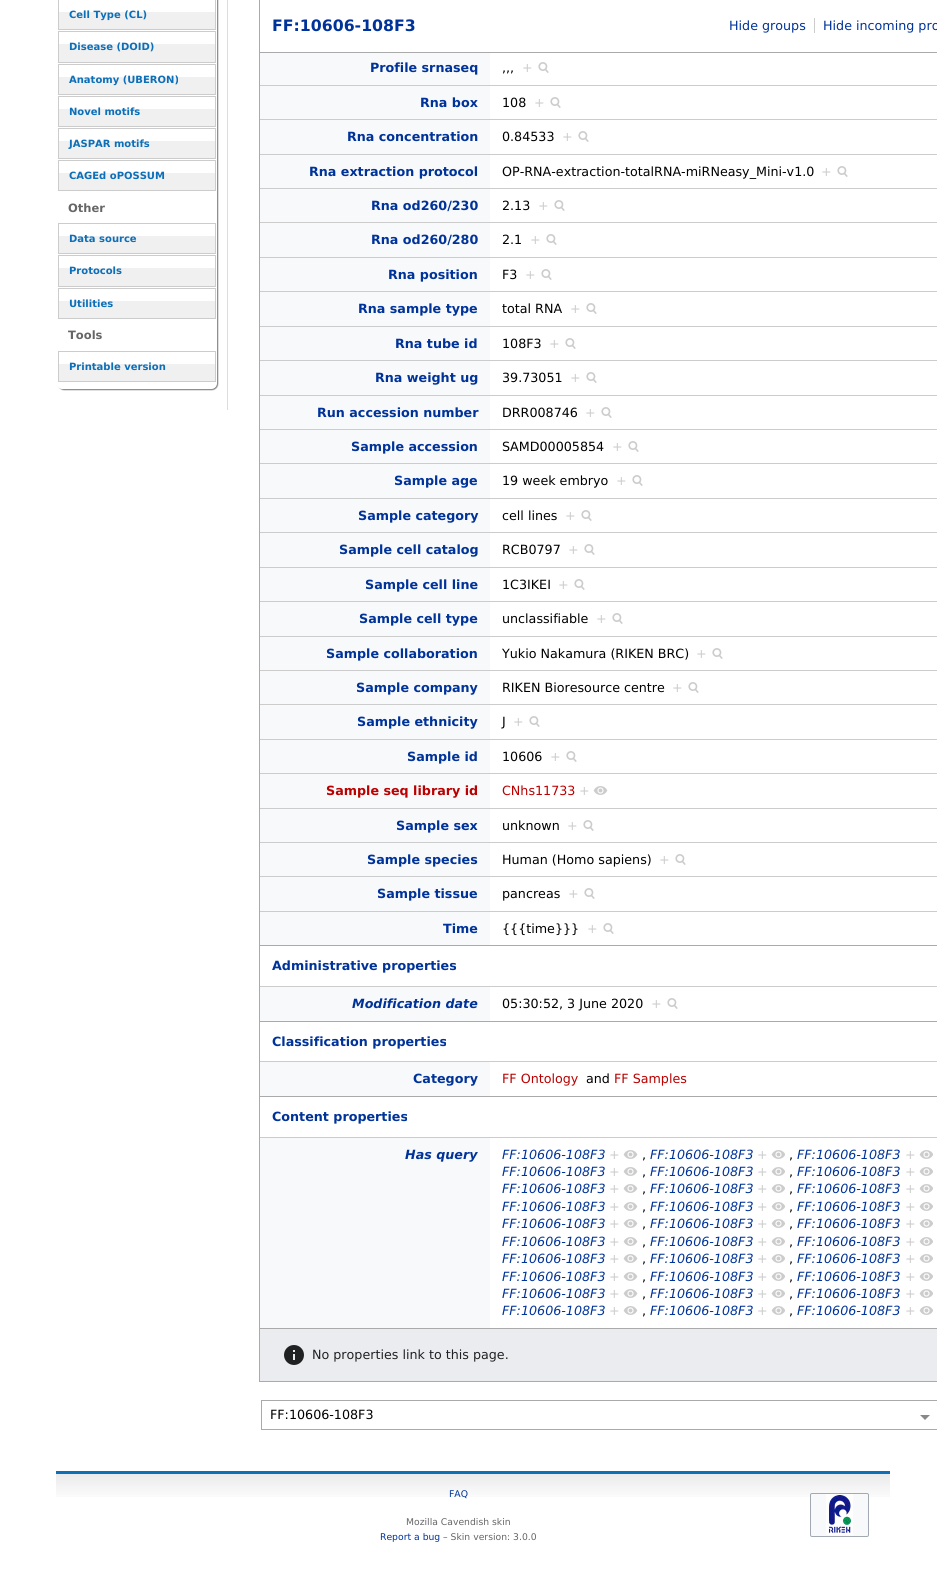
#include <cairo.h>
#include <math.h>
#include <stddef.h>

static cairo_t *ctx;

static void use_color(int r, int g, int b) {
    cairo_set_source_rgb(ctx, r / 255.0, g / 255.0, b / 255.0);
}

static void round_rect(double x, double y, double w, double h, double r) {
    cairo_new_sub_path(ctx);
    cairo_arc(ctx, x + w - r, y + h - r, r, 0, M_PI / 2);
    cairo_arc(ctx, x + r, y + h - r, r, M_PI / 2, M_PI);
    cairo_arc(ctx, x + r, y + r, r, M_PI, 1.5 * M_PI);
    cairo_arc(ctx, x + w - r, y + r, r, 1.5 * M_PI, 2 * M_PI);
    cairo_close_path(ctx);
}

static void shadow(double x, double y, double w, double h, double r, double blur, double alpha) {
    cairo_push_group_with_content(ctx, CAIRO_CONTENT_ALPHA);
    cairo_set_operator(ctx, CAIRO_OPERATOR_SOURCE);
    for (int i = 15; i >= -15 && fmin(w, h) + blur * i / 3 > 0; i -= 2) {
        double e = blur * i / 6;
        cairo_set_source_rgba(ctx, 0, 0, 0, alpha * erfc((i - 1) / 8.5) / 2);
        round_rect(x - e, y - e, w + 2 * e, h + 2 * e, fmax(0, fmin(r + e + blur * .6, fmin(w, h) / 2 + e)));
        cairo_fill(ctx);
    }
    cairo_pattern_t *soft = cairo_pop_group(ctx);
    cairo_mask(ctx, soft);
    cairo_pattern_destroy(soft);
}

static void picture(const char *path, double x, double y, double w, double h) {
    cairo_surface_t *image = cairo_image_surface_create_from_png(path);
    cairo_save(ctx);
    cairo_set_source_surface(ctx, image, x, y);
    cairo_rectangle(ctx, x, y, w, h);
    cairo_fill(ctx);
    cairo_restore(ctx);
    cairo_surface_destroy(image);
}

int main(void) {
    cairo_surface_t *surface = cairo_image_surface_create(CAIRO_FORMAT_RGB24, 937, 1578);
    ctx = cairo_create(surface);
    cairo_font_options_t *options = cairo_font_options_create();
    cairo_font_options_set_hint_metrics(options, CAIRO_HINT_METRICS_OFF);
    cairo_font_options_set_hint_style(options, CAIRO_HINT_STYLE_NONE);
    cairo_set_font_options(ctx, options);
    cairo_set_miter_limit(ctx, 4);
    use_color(255, 255, 255);
    cairo_paint(ctx);
    use_color(221, 221, 221);
    cairo_rectangle(ctx, 227, 0, 1, 410);
    cairo_fill(ctx);
    cairo_save(ctx);
    cairo_set_fill_rule(ctx, CAIRO_FILL_RULE_EVEN_ODD);
    cairo_new_path(ctx);
    cairo_move_to(ctx, 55, 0);
    cairo_line_to(ctx, 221, 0);
    cairo_line_to(ctx, 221, 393);
    cairo_line_to(ctx, 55, 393);
    cairo_close_path(ctx);
    cairo_move_to(ctx, 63, -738);
    cairo_line_to(ctx, 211, -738);
    cairo_curve_to(ctx, 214.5, -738, 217, -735.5, 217, -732);
    cairo_line_to(ctx, 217, 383);
    cairo_curve_to(ctx, 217, 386.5, 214.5, 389, 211, 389);
    cairo_line_to(ctx, 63, 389);
    cairo_curve_to(ctx, 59.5, 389, 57, 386.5, 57, 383);
    cairo_line_to(ctx, 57, -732);
    cairo_curve_to(ctx, 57, -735.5, 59.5, -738, 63, -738);
    cairo_close_path(ctx);
    cairo_clip(ctx);
    use_color(128, 128, 128);
    shadow(58, -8, 160, 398, 6, 0.5, 1);
    cairo_restore(ctx);
    use_color(240, 240, 240);
    cairo_rectangle(ctx, 59, 12, 156, 17);
    cairo_fill(ctx);
    cairo_rectangle(ctx, 58.5, -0.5, 157, 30);
    use_color(204, 204, 204);
    cairo_set_line_width(ctx, 1);
    cairo_stroke(ctx);
    cairo_select_font_face(ctx, "DejaVu Sans", CAIRO_FONT_SLANT_NORMAL, CAIRO_FONT_WEIGHT_BOLD);
    cairo_set_font_size(ctx, 10);
    use_color(13, 111, 184);
    cairo_move_to(ctx, 69, 18);
    cairo_show_text(ctx, "Cell Type (CL)");
    use_color(240, 240, 240);
    cairo_rectangle(ctx, 59, 44, 156, 18);
    cairo_fill(ctx);
    cairo_rectangle(ctx, 58.5, 31.5, 157, 31);
    use_color(204, 204, 204);
    cairo_stroke(ctx);
    use_color(13, 111, 184);
    cairo_move_to(ctx, 69, 50);
    cairo_show_text(ctx, "Disease (DOID)");
    use_color(240, 240, 240);
    cairo_rectangle(ctx, 59, 77, 156, 17);
    cairo_fill(ctx);
    cairo_rectangle(ctx, 58.5, 64.5, 157, 30);
    use_color(204, 204, 204);
    cairo_stroke(ctx);
    use_color(13, 111, 184);
    cairo_move_to(ctx, 69, 83);
    cairo_show_text(ctx, "Anatomy (UBERON)");
    use_color(240, 240, 240);
    cairo_rectangle(ctx, 59, 109, 156, 17);
    cairo_fill(ctx);
    cairo_rectangle(ctx, 58.5, 96.5, 157, 30);
    use_color(204, 204, 204);
    cairo_stroke(ctx);
    use_color(13, 111, 184);
    cairo_move_to(ctx, 69, 115);
    cairo_show_text(ctx, "Novel motifs");
    use_color(240, 240, 240);
    cairo_rectangle(ctx, 59, 141, 156, 17);
    cairo_fill(ctx);
    cairo_rectangle(ctx, 58.5, 128.5, 157, 30);
    use_color(204, 204, 204);
    cairo_stroke(ctx);
    use_color(13, 111, 184);
    cairo_move_to(ctx, 69, 147);
    cairo_show_text(ctx, "JASPAR motifs");
    use_color(240, 240, 240);
    cairo_rectangle(ctx, 59, 173, 156, 17);
    cairo_fill(ctx);
    cairo_rectangle(ctx, 58.5, 160.5, 157, 30);
    use_color(204, 204, 204);
    cairo_stroke(ctx);
    use_color(13, 111, 184);
    cairo_move_to(ctx, 69, 179);
    cairo_show_text(ctx, "CAGEd oPOSSUM");
    cairo_set_font_size(ctx, 11.5);
    use_color(102, 102, 102);
    cairo_move_to(ctx, 68, 212);
    cairo_show_text(ctx, "Other");
    use_color(240, 240, 240);
    cairo_rectangle(ctx, 59, 236, 156, 17);
    cairo_fill(ctx);
    cairo_rectangle(ctx, 58.5, 223.5, 157, 30);
    use_color(204, 204, 204);
    cairo_stroke(ctx);
    cairo_set_font_size(ctx, 10);
    use_color(13, 111, 184);
    cairo_move_to(ctx, 69, 242);
    cairo_show_text(ctx, "Data source");
    use_color(240, 240, 240);
    cairo_rectangle(ctx, 59, 268, 156, 18);
    cairo_fill(ctx);
    cairo_rectangle(ctx, 58.5, 255.5, 157, 31);
    use_color(204, 204, 204);
    cairo_stroke(ctx);
    use_color(13, 111, 184);
    cairo_move_to(ctx, 69, 274);
    cairo_show_text(ctx, "Protocols");
    use_color(240, 240, 240);
    cairo_rectangle(ctx, 59, 301, 156, 17);
    cairo_fill(ctx);
    cairo_rectangle(ctx, 58.5, 288.5, 157, 30);
    use_color(204, 204, 204);
    cairo_stroke(ctx);
    use_color(13, 111, 184);
    cairo_move_to(ctx, 69, 307);
    cairo_show_text(ctx, "Utilities");
    cairo_set_font_size(ctx, 11.5);
    use_color(102, 102, 102);
    cairo_move_to(ctx, 68, 339);
    cairo_show_text(ctx, "Tools");
    use_color(240, 240, 240);
    cairo_rectangle(ctx, 59, 364, 156, 17);
    cairo_fill(ctx);
    cairo_rectangle(ctx, 58.5, 351.5, 157, 30);
    use_color(204, 204, 204);
    cairo_stroke(ctx);
    cairo_set_font_size(ctx, 10);
    use_color(13, 111, 184);
    cairo_move_to(ctx, 69, 370);
    cairo_show_text(ctx, "Printable version");
    cairo_rectangle(ctx, 259.5, -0.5, 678, 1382);
    use_color(170, 170, 170);
    cairo_stroke(ctx);
    cairo_rectangle(ctx, 260, 52, 677, 1);
    cairo_fill(ctx);
    cairo_set_font_size(ctx, 15.75);
    use_color(0, 51, 153);
    cairo_move_to(ctx, 272, 31);
    cairo_show_text(ctx, "FF:10606-108F3");
    cairo_select_font_face(ctx, "DejaVu Sans", CAIRO_FONT_SLANT_NORMAL, CAIRO_FONT_WEIGHT_NORMAL);
    cairo_set_font_size(ctx, 12.7);
    cairo_move_to(ctx, 729, 30);
    cairo_show_text(ctx, "Hide groups");
    cairo_move_to(ctx, 823, 30);
    cairo_show_text(ctx, "Hide incoming pro");
    use_color(204, 204, 204);
    cairo_rectangle(ctx, 814, 18, 1, 15);
    cairo_fill(ctx);
    use_color(170, 170, 170);
    cairo_rectangle(ctx, 260, 945, 677, 1);
    cairo_fill(ctx);
    use_color(248, 249, 250);
    cairo_rectangle(ctx, 260, 53, 230, 32);
    cairo_fill(ctx);
    cairo_select_font_face(ctx, "DejaVu Sans", CAIRO_FONT_SLANT_NORMAL, CAIRO_FONT_WEIGHT_BOLD);
    use_color(0, 51, 153);
    cairo_move_to(ctx, 370, 72);
    cairo_show_text(ctx, "Profile srnaseq");
    cairo_select_font_face(ctx, "DejaVu Sans", CAIRO_FONT_SLANT_NORMAL, CAIRO_FONT_WEIGHT_NORMAL);
    use_color(0, 0, 0);
    cairo_move_to(ctx, 502, 72);
    cairo_show_text(ctx, ",,,");
    use_color(204, 204, 204);
    cairo_move_to(ctx, 522, 72);
    cairo_show_text(ctx, "+");
    picture("img1.png", 538, 62, 11, 11);
    cairo_rectangle(ctx, 260, 85, 677, 1);
    cairo_fill(ctx);
    use_color(248, 249, 250);
    cairo_rectangle(ctx, 260, 86, 230, 33);
    cairo_fill(ctx);
    cairo_select_font_face(ctx, "DejaVu Sans", CAIRO_FONT_SLANT_NORMAL, CAIRO_FONT_WEIGHT_BOLD);
    use_color(0, 51, 153);
    cairo_move_to(ctx, 420, 107);
    cairo_show_text(ctx, "Rna box");
    cairo_select_font_face(ctx, "DejaVu Sans", CAIRO_FONT_SLANT_NORMAL, CAIRO_FONT_WEIGHT_NORMAL);
    use_color(0, 0, 0);
    cairo_move_to(ctx, 502, 107);
    cairo_show_text(ctx, "108");
    use_color(204, 204, 204);
    cairo_move_to(ctx, 534, 107);
    cairo_show_text(ctx, "+");
    picture("img1.png", 550, 97, 11, 11);
    cairo_rectangle(ctx, 260, 119, 677, 1);
    cairo_fill(ctx);
    use_color(248, 249, 250);
    cairo_rectangle(ctx, 260, 120, 230, 34);
    cairo_fill(ctx);
    cairo_select_font_face(ctx, "DejaVu Sans", CAIRO_FONT_SLANT_NORMAL, CAIRO_FONT_WEIGHT_BOLD);
    use_color(0, 51, 153);
    cairo_move_to(ctx, 347, 141);
    cairo_show_text(ctx, "Rna concentration");
    cairo_select_font_face(ctx, "DejaVu Sans", CAIRO_FONT_SLANT_NORMAL, CAIRO_FONT_WEIGHT_NORMAL);
    use_color(0, 0, 0);
    cairo_move_to(ctx, 502, 141);
    cairo_show_text(ctx, "0.84533");
    use_color(204, 204, 204);
    cairo_move_to(ctx, 562, 141);
    cairo_show_text(ctx, "+");
    picture("img1.png", 578, 131, 11, 11);
    cairo_rectangle(ctx, 260, 154, 677, 1);
    cairo_fill(ctx);
    use_color(248, 249, 250);
    cairo_rectangle(ctx, 260, 155, 230, 33);
    cairo_fill(ctx);
    cairo_select_font_face(ctx, "DejaVu Sans", CAIRO_FONT_SLANT_NORMAL, CAIRO_FONT_WEIGHT_BOLD);
    use_color(0, 51, 153);
    cairo_move_to(ctx, 309, 176);
    cairo_show_text(ctx, "Rna extraction protocol");
    cairo_select_font_face(ctx, "DejaVu Sans", CAIRO_FONT_SLANT_NORMAL, CAIRO_FONT_WEIGHT_NORMAL);
    use_color(0, 0, 0);
    cairo_move_to(ctx, 502, 176);
    cairo_show_text(ctx, "OP-RNA-extraction-totalRNA-miRNeasy_Mini-v1.0");
    use_color(204, 204, 204);
    cairo_move_to(ctx, 821, 176);
    cairo_show_text(ctx, "+");
    picture("img1.png", 837, 166, 11, 11);
    cairo_rectangle(ctx, 260, 188, 677, 1);
    cairo_fill(ctx);
    use_color(248, 249, 250);
    cairo_rectangle(ctx, 260, 189, 230, 33);
    cairo_fill(ctx);
    cairo_select_font_face(ctx, "DejaVu Sans", CAIRO_FONT_SLANT_NORMAL, CAIRO_FONT_WEIGHT_BOLD);
    use_color(0, 51, 153);
    cairo_move_to(ctx, 371, 210);
    cairo_show_text(ctx, "Rna od260/230");
    cairo_select_font_face(ctx, "DejaVu Sans", CAIRO_FONT_SLANT_NORMAL, CAIRO_FONT_WEIGHT_NORMAL);
    use_color(0, 0, 0);
    cairo_move_to(ctx, 502, 210);
    cairo_show_text(ctx, "2.13");
    use_color(204, 204, 204);
    cairo_move_to(ctx, 538, 210);
    cairo_show_text(ctx, "+");
    picture("img1.png", 554, 200, 11, 11);
    cairo_rectangle(ctx, 260, 222, 677, 1);
    cairo_fill(ctx);
    use_color(248, 249, 250);
    cairo_rectangle(ctx, 260, 223, 230, 34);
    cairo_fill(ctx);
    cairo_select_font_face(ctx, "DejaVu Sans", CAIRO_FONT_SLANT_NORMAL, CAIRO_FONT_WEIGHT_BOLD);
    use_color(0, 51, 153);
    cairo_move_to(ctx, 371, 244);
    cairo_show_text(ctx, "Rna od260/280");
    cairo_select_font_face(ctx, "DejaVu Sans", CAIRO_FONT_SLANT_NORMAL, CAIRO_FONT_WEIGHT_NORMAL);
    use_color(0, 0, 0);
    cairo_move_to(ctx, 502, 244);
    cairo_show_text(ctx, "2.1");
    use_color(204, 204, 204);
    cairo_move_to(ctx, 530, 244);
    cairo_show_text(ctx, "+");
    picture("img1.png", 546, 234, 11, 11);
    cairo_rectangle(ctx, 260, 257, 677, 1);
    cairo_fill(ctx);
    use_color(248, 249, 250);
    cairo_rectangle(ctx, 260, 258, 230, 33);
    cairo_fill(ctx);
    cairo_select_font_face(ctx, "DejaVu Sans", CAIRO_FONT_SLANT_NORMAL, CAIRO_FONT_WEIGHT_BOLD);
    use_color(0, 51, 153);
    cairo_move_to(ctx, 388, 279);
    cairo_show_text(ctx, "Rna position");
    cairo_select_font_face(ctx, "DejaVu Sans", CAIRO_FONT_SLANT_NORMAL, CAIRO_FONT_WEIGHT_NORMAL);
    use_color(0, 0, 0);
    cairo_move_to(ctx, 502, 279);
    cairo_show_text(ctx, "F3");
    use_color(204, 204, 204);
    cairo_move_to(ctx, 525, 279);
    cairo_show_text(ctx, "+");
    picture("img1.png", 541, 269, 11, 11);
    cairo_rectangle(ctx, 260, 291, 677, 1);
    cairo_fill(ctx);
    use_color(248, 249, 250);
    cairo_rectangle(ctx, 260, 292, 230, 34);
    cairo_fill(ctx);
    cairo_select_font_face(ctx, "DejaVu Sans", CAIRO_FONT_SLANT_NORMAL, CAIRO_FONT_WEIGHT_BOLD);
    use_color(0, 51, 153);
    cairo_move_to(ctx, 358, 313);
    cairo_show_text(ctx, "Rna sample type");
    cairo_select_font_face(ctx, "DejaVu Sans", CAIRO_FONT_SLANT_NORMAL, CAIRO_FONT_WEIGHT_NORMAL);
    use_color(0, 0, 0);
    cairo_move_to(ctx, 502, 313);
    cairo_show_text(ctx, "total RNA");
    use_color(204, 204, 204);
    cairo_move_to(ctx, 570, 313);
    cairo_show_text(ctx, "+");
    picture("img1.png", 586, 303, 11, 11);
    cairo_rectangle(ctx, 260, 326, 677, 1);
    cairo_fill(ctx);
    use_color(248, 249, 250);
    cairo_rectangle(ctx, 260, 327, 230, 33);
    cairo_fill(ctx);
    cairo_select_font_face(ctx, "DejaVu Sans", CAIRO_FONT_SLANT_NORMAL, CAIRO_FONT_WEIGHT_BOLD);
    use_color(0, 51, 153);
    cairo_move_to(ctx, 395, 348);
    cairo_show_text(ctx, "Rna tube id");
    cairo_select_font_face(ctx, "DejaVu Sans", CAIRO_FONT_SLANT_NORMAL, CAIRO_FONT_WEIGHT_NORMAL);
    use_color(0, 0, 0);
    cairo_move_to(ctx, 502, 348);
    cairo_show_text(ctx, "108F3");
    use_color(204, 204, 204);
    cairo_move_to(ctx, 549, 348);
    cairo_show_text(ctx, "+");
    picture("img1.png", 565, 338, 11, 11);
    cairo_rectangle(ctx, 260, 360, 677, 1);
    cairo_fill(ctx);
    use_color(248, 249, 250);
    cairo_rectangle(ctx, 260, 361, 230, 34);
    cairo_fill(ctx);
    cairo_select_font_face(ctx, "DejaVu Sans", CAIRO_FONT_SLANT_NORMAL, CAIRO_FONT_WEIGHT_BOLD);
    use_color(0, 51, 153);
    cairo_move_to(ctx, 375, 382);
    cairo_show_text(ctx, "Rna weight ug");
    cairo_select_font_face(ctx, "DejaVu Sans", CAIRO_FONT_SLANT_NORMAL, CAIRO_FONT_WEIGHT_NORMAL);
    use_color(0, 0, 0);
    cairo_move_to(ctx, 502, 382);
    cairo_show_text(ctx, "39.73051");
    use_color(204, 204, 204);
    cairo_move_to(ctx, 570, 382);
    cairo_show_text(ctx, "+");
    picture("img1.png", 586, 372, 11, 11);
    cairo_rectangle(ctx, 260, 395, 677, 1);
    cairo_fill(ctx);
    use_color(248, 249, 250);
    cairo_rectangle(ctx, 260, 396, 230, 33);
    cairo_fill(ctx);
    cairo_select_font_face(ctx, "DejaVu Sans", CAIRO_FONT_SLANT_NORMAL, CAIRO_FONT_WEIGHT_BOLD);
    use_color(0, 51, 153);
    cairo_move_to(ctx, 317, 417);
    cairo_show_text(ctx, "Run accession number");
    cairo_select_font_face(ctx, "DejaVu Sans", CAIRO_FONT_SLANT_NORMAL, CAIRO_FONT_WEIGHT_NORMAL);
    use_color(0, 0, 0);
    cairo_move_to(ctx, 502, 417);
    cairo_show_text(ctx, "DRR008746");
    use_color(204, 204, 204);
    cairo_move_to(ctx, 585, 417);
    cairo_show_text(ctx, "+");
    picture("img1.png", 601, 407, 11, 11);
    cairo_rectangle(ctx, 260, 429, 677, 1);
    cairo_fill(ctx);
    use_color(248, 249, 250);
    cairo_rectangle(ctx, 260, 430, 230, 33);
    cairo_fill(ctx);
    cairo_select_font_face(ctx, "DejaVu Sans", CAIRO_FONT_SLANT_NORMAL, CAIRO_FONT_WEIGHT_BOLD);
    use_color(0, 51, 153);
    cairo_move_to(ctx, 351, 451);
    cairo_show_text(ctx, "Sample accession");
    cairo_select_font_face(ctx, "DejaVu Sans", CAIRO_FONT_SLANT_NORMAL, CAIRO_FONT_WEIGHT_NORMAL);
    use_color(0, 0, 0);
    cairo_move_to(ctx, 502, 451);
    cairo_show_text(ctx, "SAMD00005854");
    use_color(204, 204, 204);
    cairo_move_to(ctx, 612, 451);
    cairo_show_text(ctx, "+");
    picture("img1.png", 628, 441, 11, 11);
    cairo_rectangle(ctx, 260, 463, 677, 1);
    cairo_fill(ctx);
    use_color(248, 249, 250);
    cairo_rectangle(ctx, 260, 464, 230, 34);
    cairo_fill(ctx);
    cairo_select_font_face(ctx, "DejaVu Sans", CAIRO_FONT_SLANT_NORMAL, CAIRO_FONT_WEIGHT_BOLD);
    use_color(0, 51, 153);
    cairo_move_to(ctx, 394, 485);
    cairo_show_text(ctx, "Sample age");
    cairo_select_font_face(ctx, "DejaVu Sans", CAIRO_FONT_SLANT_NORMAL, CAIRO_FONT_WEIGHT_NORMAL);
    use_color(0, 0, 0);
    cairo_move_to(ctx, 502, 485);
    cairo_show_text(ctx, "19 week embryo");
    use_color(204, 204, 204);
    cairo_move_to(ctx, 616, 485);
    cairo_show_text(ctx, "+");
    picture("img1.png", 632, 475, 11, 11);
    cairo_rectangle(ctx, 260, 498, 677, 1);
    cairo_fill(ctx);
    use_color(248, 249, 250);
    cairo_rectangle(ctx, 260, 499, 230, 33);
    cairo_fill(ctx);
    cairo_select_font_face(ctx, "DejaVu Sans", CAIRO_FONT_SLANT_NORMAL, CAIRO_FONT_WEIGHT_BOLD);
    use_color(0, 51, 153);
    cairo_move_to(ctx, 358, 520);
    cairo_show_text(ctx, "Sample category");
    cairo_select_font_face(ctx, "DejaVu Sans", CAIRO_FONT_SLANT_NORMAL, CAIRO_FONT_WEIGHT_NORMAL);
    use_color(0, 0, 0);
    cairo_move_to(ctx, 502, 520);
    cairo_show_text(ctx, "cell lines");
    use_color(204, 204, 204);
    cairo_move_to(ctx, 565, 520);
    cairo_show_text(ctx, "+");
    picture("img1.png", 581, 510, 11, 11);
    cairo_rectangle(ctx, 260, 532, 677, 1);
    cairo_fill(ctx);
    use_color(248, 249, 250);
    cairo_rectangle(ctx, 260, 533, 230, 34);
    cairo_fill(ctx);
    cairo_select_font_face(ctx, "DejaVu Sans", CAIRO_FONT_SLANT_NORMAL, CAIRO_FONT_WEIGHT_BOLD);
    use_color(0, 51, 153);
    cairo_move_to(ctx, 339, 554);
    cairo_show_text(ctx, "Sample cell catalog");
    cairo_select_font_face(ctx, "DejaVu Sans", CAIRO_FONT_SLANT_NORMAL, CAIRO_FONT_WEIGHT_NORMAL);
    use_color(0, 0, 0);
    cairo_move_to(ctx, 502, 554);
    cairo_show_text(ctx, "RCB0797");
    use_color(204, 204, 204);
    cairo_move_to(ctx, 568, 554);
    cairo_show_text(ctx, "+");
    picture("img1.png", 584, 544, 11, 11);
    cairo_rectangle(ctx, 260, 567, 677, 1);
    cairo_fill(ctx);
    use_color(248, 249, 250);
    cairo_rectangle(ctx, 260, 568, 230, 33);
    cairo_fill(ctx);
    cairo_select_font_face(ctx, "DejaVu Sans", CAIRO_FONT_SLANT_NORMAL, CAIRO_FONT_WEIGHT_BOLD);
    use_color(0, 51, 153);
    cairo_move_to(ctx, 365, 589);
    cairo_show_text(ctx, "Sample cell line");
    cairo_select_font_face(ctx, "DejaVu Sans", CAIRO_FONT_SLANT_NORMAL, CAIRO_FONT_WEIGHT_NORMAL);
    use_color(0, 0, 0);
    cairo_move_to(ctx, 502, 589);
    cairo_show_text(ctx, "1C3IKEI");
    use_color(204, 204, 204);
    cairo_move_to(ctx, 558, 589);
    cairo_show_text(ctx, "+");
    picture("img1.png", 574, 579, 11, 11);
    cairo_rectangle(ctx, 260, 601, 677, 1);
    cairo_fill(ctx);
    use_color(248, 249, 250);
    cairo_rectangle(ctx, 260, 602, 230, 34);
    cairo_fill(ctx);
    cairo_select_font_face(ctx, "DejaVu Sans", CAIRO_FONT_SLANT_NORMAL, CAIRO_FONT_WEIGHT_BOLD);
    use_color(0, 51, 153);
    cairo_move_to(ctx, 359, 623);
    cairo_show_text(ctx, "Sample cell type");
    cairo_select_font_face(ctx, "DejaVu Sans", CAIRO_FONT_SLANT_NORMAL, CAIRO_FONT_WEIGHT_NORMAL);
    use_color(0, 0, 0);
    cairo_move_to(ctx, 502, 623);
    cairo_show_text(ctx, "unclassifiable");
    use_color(204, 204, 204);
    cairo_move_to(ctx, 596, 623);
    cairo_show_text(ctx, "+");
    picture("img1.png", 612, 613, 11, 11);
    cairo_rectangle(ctx, 260, 636, 677, 1);
    cairo_fill(ctx);
    use_color(248, 249, 250);
    cairo_rectangle(ctx, 260, 637, 230, 33);
    cairo_fill(ctx);
    cairo_select_font_face(ctx, "DejaVu Sans", CAIRO_FONT_SLANT_NORMAL, CAIRO_FONT_WEIGHT_BOLD);
    use_color(0, 51, 153);
    cairo_move_to(ctx, 326, 658);
    cairo_show_text(ctx, "Sample collaboration");
    cairo_select_font_face(ctx, "DejaVu Sans", CAIRO_FONT_SLANT_NORMAL, CAIRO_FONT_WEIGHT_NORMAL);
    use_color(0, 0, 0);
    cairo_move_to(ctx, 502, 658);
    cairo_show_text(ctx, "Yukio Nakamura (RIKEN BRC)");
    use_color(204, 204, 204);
    cairo_move_to(ctx, 696, 658);
    cairo_show_text(ctx, "+");
    picture("img1.png", 712, 648, 11, 11);
    cairo_rectangle(ctx, 260, 670, 677, 1);
    cairo_fill(ctx);
    use_color(248, 249, 250);
    cairo_rectangle(ctx, 260, 671, 230, 33);
    cairo_fill(ctx);
    cairo_select_font_face(ctx, "DejaVu Sans", CAIRO_FONT_SLANT_NORMAL, CAIRO_FONT_WEIGHT_BOLD);
    use_color(0, 51, 153);
    cairo_move_to(ctx, 356, 692);
    cairo_show_text(ctx, "Sample company");
    cairo_select_font_face(ctx, "DejaVu Sans", CAIRO_FONT_SLANT_NORMAL, CAIRO_FONT_WEIGHT_NORMAL);
    use_color(0, 0, 0);
    cairo_move_to(ctx, 502, 692);
    cairo_show_text(ctx, "RIKEN Bioresource centre");
    use_color(204, 204, 204);
    cairo_move_to(ctx, 672, 692);
    cairo_show_text(ctx, "+");
    picture("img1.png", 688, 682, 11, 11);
    cairo_rectangle(ctx, 260, 704, 677, 1);
    cairo_fill(ctx);
    use_color(248, 249, 250);
    cairo_rectangle(ctx, 260, 705, 230, 34);
    cairo_fill(ctx);
    cairo_select_font_face(ctx, "DejaVu Sans", CAIRO_FONT_SLANT_NORMAL, CAIRO_FONT_WEIGHT_BOLD);
    use_color(0, 51, 153);
    cairo_move_to(ctx, 357, 726);
    cairo_show_text(ctx, "Sample ethnicity");
    cairo_select_font_face(ctx, "DejaVu Sans", CAIRO_FONT_SLANT_NORMAL, CAIRO_FONT_WEIGHT_NORMAL);
    use_color(0, 0, 0);
    cairo_move_to(ctx, 502, 726);
    cairo_show_text(ctx, "J");
    use_color(204, 204, 204);
    cairo_move_to(ctx, 513, 726);
    cairo_show_text(ctx, "+");
    picture("img1.png", 529, 716, 11, 11);
    cairo_rectangle(ctx, 260, 739, 677, 1);
    cairo_fill(ctx);
    use_color(248, 249, 250);
    cairo_rectangle(ctx, 260, 740, 230, 33);
    cairo_fill(ctx);
    cairo_select_font_face(ctx, "DejaVu Sans", CAIRO_FONT_SLANT_NORMAL, CAIRO_FONT_WEIGHT_BOLD);
    use_color(0, 51, 153);
    cairo_move_to(ctx, 407, 761);
    cairo_show_text(ctx, "Sample id");
    cairo_select_font_face(ctx, "DejaVu Sans", CAIRO_FONT_SLANT_NORMAL, CAIRO_FONT_WEIGHT_NORMAL);
    use_color(0, 0, 0);
    cairo_move_to(ctx, 502, 761);
    cairo_show_text(ctx, "10606");
    use_color(204, 204, 204);
    cairo_move_to(ctx, 550, 761);
    cairo_show_text(ctx, "+");
    picture("img1.png", 566, 751, 11, 11);
    cairo_rectangle(ctx, 260, 773, 677, 1);
    cairo_fill(ctx);
    use_color(248, 249, 250);
    cairo_rectangle(ctx, 260, 774, 230, 34);
    cairo_fill(ctx);
    cairo_select_font_face(ctx, "DejaVu Sans", CAIRO_FONT_SLANT_NORMAL, CAIRO_FONT_WEIGHT_BOLD);
    use_color(186, 0, 0);
    cairo_move_to(ctx, 326, 795);
    cairo_show_text(ctx, "Sample seq library id");
    cairo_select_font_face(ctx, "DejaVu Sans", CAIRO_FONT_SLANT_NORMAL, CAIRO_FONT_WEIGHT_NORMAL);
    cairo_move_to(ctx, 502, 795);
    cairo_show_text(ctx, "CNhs11733");
    use_color(204, 204, 204);
    cairo_move_to(ctx, 579, 795);
    cairo_show_text(ctx, "+");
    picture("img2.png", 593, 786, 15, 9);
    cairo_rectangle(ctx, 260, 808, 677, 1);
    cairo_fill(ctx);
    use_color(248, 249, 250);
    cairo_rectangle(ctx, 260, 809, 230, 33);
    cairo_fill(ctx);
    cairo_select_font_face(ctx, "DejaVu Sans", CAIRO_FONT_SLANT_NORMAL, CAIRO_FONT_WEIGHT_BOLD);
    use_color(0, 51, 153);
    cairo_move_to(ctx, 396, 830);
    cairo_show_text(ctx, "Sample sex");
    cairo_select_font_face(ctx, "DejaVu Sans", CAIRO_FONT_SLANT_NORMAL, CAIRO_FONT_WEIGHT_NORMAL);
    use_color(0, 0, 0);
    cairo_move_to(ctx, 502, 830);
    cairo_show_text(ctx, "unknown");
    use_color(204, 204, 204);
    cairo_move_to(ctx, 567, 830);
    cairo_show_text(ctx, "+");
    picture("img1.png", 583, 820, 11, 11);
    cairo_rectangle(ctx, 260, 842, 677, 1);
    cairo_fill(ctx);
    use_color(248, 249, 250);
    cairo_rectangle(ctx, 260, 843, 230, 33);
    cairo_fill(ctx);
    cairo_select_font_face(ctx, "DejaVu Sans", CAIRO_FONT_SLANT_NORMAL, CAIRO_FONT_WEIGHT_BOLD);
    use_color(0, 51, 153);
    cairo_move_to(ctx, 367, 864);
    cairo_show_text(ctx, "Sample species");
    cairo_select_font_face(ctx, "DejaVu Sans", CAIRO_FONT_SLANT_NORMAL, CAIRO_FONT_WEIGHT_NORMAL);
    use_color(0, 0, 0);
    cairo_move_to(ctx, 502, 864);
    cairo_show_text(ctx, "Human (Homo sapiens)");
    use_color(204, 204, 204);
    cairo_move_to(ctx, 659, 864);
    cairo_show_text(ctx, "+");
    picture("img1.png", 675, 854, 11, 11);
    cairo_rectangle(ctx, 260, 876, 677, 1);
    cairo_fill(ctx);
    use_color(248, 249, 250);
    cairo_rectangle(ctx, 260, 877, 230, 34);
    cairo_fill(ctx);
    cairo_select_font_face(ctx, "DejaVu Sans", CAIRO_FONT_SLANT_NORMAL, CAIRO_FONT_WEIGHT_BOLD);
    use_color(0, 51, 153);
    cairo_move_to(ctx, 377, 898);
    cairo_show_text(ctx, "Sample tissue");
    cairo_select_font_face(ctx, "DejaVu Sans", CAIRO_FONT_SLANT_NORMAL, CAIRO_FONT_WEIGHT_NORMAL);
    use_color(0, 0, 0);
    cairo_move_to(ctx, 502, 898);
    cairo_show_text(ctx, "pancreas");
    use_color(204, 204, 204);
    cairo_move_to(ctx, 568, 898);
    cairo_show_text(ctx, "+");
    picture("img1.png", 584, 888, 11, 11);
    cairo_rectangle(ctx, 260, 911, 677, 1);
    cairo_fill(ctx);
    use_color(248, 249, 250);
    cairo_rectangle(ctx, 260, 912, 230, 33);
    cairo_fill(ctx);
    cairo_select_font_face(ctx, "DejaVu Sans", CAIRO_FONT_SLANT_NORMAL, CAIRO_FONT_WEIGHT_BOLD);
    use_color(0, 51, 153);
    cairo_move_to(ctx, 443, 933);
    cairo_show_text(ctx, "Time");
    cairo_select_font_face(ctx, "DejaVu Sans", CAIRO_FONT_SLANT_NORMAL, CAIRO_FONT_WEIGHT_NORMAL);
    use_color(0, 0, 0);
    cairo_move_to(ctx, 502, 933);
    cairo_show_text(ctx, "{{{time}}}");
    use_color(204, 204, 204);
    cairo_move_to(ctx, 587, 933);
    cairo_show_text(ctx, "+");
    picture("img1.png", 603, 923, 11, 11);
    use_color(170, 170, 170);
    cairo_rectangle(ctx, 260, 1021, 677, 1);
    cairo_fill(ctx);
    cairo_select_font_face(ctx, "DejaVu Sans", CAIRO_FONT_SLANT_NORMAL, CAIRO_FONT_WEIGHT_BOLD);
    use_color(0, 51, 153);
    cairo_move_to(ctx, 272, 970);
    cairo_show_text(ctx, "Administrative properties");
    use_color(204, 204, 204);
    cairo_rectangle(ctx, 260, 986, 677, 1);
    cairo_fill(ctx);
    use_color(248, 249, 250);
    cairo_rectangle(ctx, 260, 987, 230, 34);
    cairo_fill(ctx);
    cairo_select_font_face(ctx, "DejaVu Sans", CAIRO_FONT_SLANT_ITALIC, CAIRO_FONT_WEIGHT_BOLD);
    use_color(0, 51, 153);
    cairo_move_to(ctx, 352, 1008);
    cairo_show_text(ctx, "Modification date");
    cairo_select_font_face(ctx, "DejaVu Sans", CAIRO_FONT_SLANT_NORMAL, CAIRO_FONT_WEIGHT_NORMAL);
    use_color(0, 0, 0);
    cairo_move_to(ctx, 502, 1008);
    cairo_show_text(ctx, "05:30:52, 3 June 2020");
    use_color(204, 204, 204);
    cairo_move_to(ctx, 651, 1008);
    cairo_show_text(ctx, "+");
    picture("img1.png", 667, 998, 11, 11);
    use_color(170, 170, 170);
    cairo_rectangle(ctx, 260, 1096, 677, 1);
    cairo_fill(ctx);
    cairo_select_font_face(ctx, "DejaVu Sans", CAIRO_FONT_SLANT_NORMAL, CAIRO_FONT_WEIGHT_BOLD);
    use_color(0, 51, 153);
    cairo_move_to(ctx, 272, 1046);
    cairo_show_text(ctx, "Classification properties");
    use_color(204, 204, 204);
    cairo_rectangle(ctx, 260, 1061, 677, 1);
    cairo_fill(ctx);
    use_color(248, 249, 250);
    cairo_rectangle(ctx, 260, 1062, 230, 34);
    cairo_fill(ctx);
    use_color(0, 51, 153);
    cairo_move_to(ctx, 413, 1083);
    cairo_show_text(ctx, "Category");
    cairo_select_font_face(ctx, "DejaVu Sans", CAIRO_FONT_SLANT_NORMAL, CAIRO_FONT_WEIGHT_NORMAL);
    use_color(186, 0, 0);
    cairo_move_to(ctx, 502, 1083);
    cairo_show_text(ctx, "FF Ontology");
    use_color(0, 0, 0);
    cairo_move_to(ctx, 586, 1083);
    cairo_show_text(ctx, "and");
    use_color(186, 0, 0);
    cairo_move_to(ctx, 614, 1083);
    cairo_show_text(ctx, "FF Samples");
    use_color(170, 170, 170);
    cairo_rectangle(ctx, 260, 1328, 677, 1);
    cairo_fill(ctx);
    cairo_select_font_face(ctx, "DejaVu Sans", CAIRO_FONT_SLANT_NORMAL, CAIRO_FONT_WEIGHT_BOLD);
    use_color(0, 51, 153);
    cairo_move_to(ctx, 272, 1121);
    cairo_show_text(ctx, "Content properties");
    use_color(204, 204, 204);
    cairo_rectangle(ctx, 260, 1137, 677, 1);
    cairo_fill(ctx);
    use_color(248, 249, 250);
    cairo_rectangle(ctx, 260, 1138, 230, 190);
    cairo_fill(ctx);
    cairo_select_font_face(ctx, "DejaVu Sans", CAIRO_FONT_SLANT_ITALIC, CAIRO_FONT_WEIGHT_BOLD);
    use_color(0, 51, 153);
    cairo_move_to(ctx, 405, 1159);
    cairo_show_text(ctx, "Has query");
    cairo_select_font_face(ctx, "DejaVu Sans", CAIRO_FONT_SLANT_ITALIC, CAIRO_FONT_WEIGHT_NORMAL);
    cairo_move_to(ctx, 502, 1159);
    cairo_show_text(ctx, "FF:10606-108F3");
    cairo_select_font_face(ctx, "DejaVu Sans", CAIRO_FONT_SLANT_NORMAL, CAIRO_FONT_WEIGHT_NORMAL);
    use_color(204, 204, 204);
    cairo_move_to(ctx, 609, 1159);
    cairo_show_text(ctx, "+");
    picture("img2.png", 623, 1150, 15, 9);
    use_color(0, 0, 0);
    cairo_move_to(ctx, 642, 1159);
    cairo_show_text(ctx, ",");
    cairo_select_font_face(ctx, "DejaVu Sans", CAIRO_FONT_SLANT_ITALIC, CAIRO_FONT_WEIGHT_NORMAL);
    use_color(0, 51, 153);
    cairo_move_to(ctx, 650, 1159);
    cairo_show_text(ctx, "FF:10606-108F3");
    cairo_select_font_face(ctx, "DejaVu Sans", CAIRO_FONT_SLANT_NORMAL, CAIRO_FONT_WEIGHT_NORMAL);
    use_color(204, 204, 204);
    cairo_move_to(ctx, 757, 1159);
    cairo_show_text(ctx, "+");
    picture("img3.png", 771, 1150, 14, 9);
    use_color(0, 0, 0);
    cairo_move_to(ctx, 789, 1159);
    cairo_show_text(ctx, ",");
    cairo_select_font_face(ctx, "DejaVu Sans", CAIRO_FONT_SLANT_ITALIC, CAIRO_FONT_WEIGHT_NORMAL);
    use_color(0, 51, 153);
    cairo_move_to(ctx, 797, 1159);
    cairo_show_text(ctx, "FF:10606-108F3");
    cairo_select_font_face(ctx, "DejaVu Sans", CAIRO_FONT_SLANT_NORMAL, CAIRO_FONT_WEIGHT_NORMAL);
    use_color(204, 204, 204);
    cairo_move_to(ctx, 905, 1159);
    cairo_show_text(ctx, "+");
    picture("img3.png", 919, 1150, 14, 9);
    cairo_select_font_face(ctx, "DejaVu Sans", CAIRO_FONT_SLANT_ITALIC, CAIRO_FONT_WEIGHT_NORMAL);
    use_color(0, 51, 153);
    cairo_move_to(ctx, 502, 1176);
    cairo_show_text(ctx, "FF:10606-108F3");
    cairo_select_font_face(ctx, "DejaVu Sans", CAIRO_FONT_SLANT_NORMAL, CAIRO_FONT_WEIGHT_NORMAL);
    use_color(204, 204, 204);
    cairo_move_to(ctx, 609, 1176);
    cairo_show_text(ctx, "+");
    picture("img2.png", 623, 1167, 15, 9);
    use_color(0, 0, 0);
    cairo_move_to(ctx, 642, 1176);
    cairo_show_text(ctx, ",");
    cairo_select_font_face(ctx, "DejaVu Sans", CAIRO_FONT_SLANT_ITALIC, CAIRO_FONT_WEIGHT_NORMAL);
    use_color(0, 51, 153);
    cairo_move_to(ctx, 650, 1176);
    cairo_show_text(ctx, "FF:10606-108F3");
    cairo_select_font_face(ctx, "DejaVu Sans", CAIRO_FONT_SLANT_NORMAL, CAIRO_FONT_WEIGHT_NORMAL);
    use_color(204, 204, 204);
    cairo_move_to(ctx, 757, 1176);
    cairo_show_text(ctx, "+");
    picture("img3.png", 771, 1167, 14, 9);
    use_color(0, 0, 0);
    cairo_move_to(ctx, 789, 1176);
    cairo_show_text(ctx, ",");
    cairo_select_font_face(ctx, "DejaVu Sans", CAIRO_FONT_SLANT_ITALIC, CAIRO_FONT_WEIGHT_NORMAL);
    use_color(0, 51, 153);
    cairo_move_to(ctx, 797, 1176);
    cairo_show_text(ctx, "FF:10606-108F3");
    cairo_select_font_face(ctx, "DejaVu Sans", CAIRO_FONT_SLANT_NORMAL, CAIRO_FONT_WEIGHT_NORMAL);
    use_color(204, 204, 204);
    cairo_move_to(ctx, 905, 1176);
    cairo_show_text(ctx, "+");
    picture("img3.png", 919, 1167, 14, 9);
    cairo_select_font_face(ctx, "DejaVu Sans", CAIRO_FONT_SLANT_ITALIC, CAIRO_FONT_WEIGHT_NORMAL);
    use_color(0, 51, 153);
    cairo_move_to(ctx, 502, 1193);
    cairo_show_text(ctx, "FF:10606-108F3");
    cairo_select_font_face(ctx, "DejaVu Sans", CAIRO_FONT_SLANT_NORMAL, CAIRO_FONT_WEIGHT_NORMAL);
    use_color(204, 204, 204);
    cairo_move_to(ctx, 609, 1193);
    cairo_show_text(ctx, "+");
    picture("img2.png", 623, 1184, 15, 9);
    use_color(0, 0, 0);
    cairo_move_to(ctx, 642, 1193);
    cairo_show_text(ctx, ",");
    cairo_select_font_face(ctx, "DejaVu Sans", CAIRO_FONT_SLANT_ITALIC, CAIRO_FONT_WEIGHT_NORMAL);
    use_color(0, 51, 153);
    cairo_move_to(ctx, 650, 1193);
    cairo_show_text(ctx, "FF:10606-108F3");
    cairo_select_font_face(ctx, "DejaVu Sans", CAIRO_FONT_SLANT_NORMAL, CAIRO_FONT_WEIGHT_NORMAL);
    use_color(204, 204, 204);
    cairo_move_to(ctx, 757, 1193);
    cairo_show_text(ctx, "+");
    picture("img3.png", 771, 1184, 14, 9);
    use_color(0, 0, 0);
    cairo_move_to(ctx, 789, 1193);
    cairo_show_text(ctx, ",");
    cairo_select_font_face(ctx, "DejaVu Sans", CAIRO_FONT_SLANT_ITALIC, CAIRO_FONT_WEIGHT_NORMAL);
    use_color(0, 51, 153);
    cairo_move_to(ctx, 797, 1193);
    cairo_show_text(ctx, "FF:10606-108F3");
    cairo_select_font_face(ctx, "DejaVu Sans", CAIRO_FONT_SLANT_NORMAL, CAIRO_FONT_WEIGHT_NORMAL);
    use_color(204, 204, 204);
    cairo_move_to(ctx, 905, 1193);
    cairo_show_text(ctx, "+");
    picture("img3.png", 919, 1184, 14, 9);
    cairo_select_font_face(ctx, "DejaVu Sans", CAIRO_FONT_SLANT_ITALIC, CAIRO_FONT_WEIGHT_NORMAL);
    use_color(0, 51, 153);
    cairo_move_to(ctx, 502, 1211);
    cairo_show_text(ctx, "FF:10606-108F3");
    cairo_select_font_face(ctx, "DejaVu Sans", CAIRO_FONT_SLANT_NORMAL, CAIRO_FONT_WEIGHT_NORMAL);
    use_color(204, 204, 204);
    cairo_move_to(ctx, 609, 1211);
    cairo_show_text(ctx, "+");
    picture("img2.png", 623, 1202, 15, 9);
    use_color(0, 0, 0);
    cairo_move_to(ctx, 642, 1211);
    cairo_show_text(ctx, ",");
    cairo_select_font_face(ctx, "DejaVu Sans", CAIRO_FONT_SLANT_ITALIC, CAIRO_FONT_WEIGHT_NORMAL);
    use_color(0, 51, 153);
    cairo_move_to(ctx, 650, 1211);
    cairo_show_text(ctx, "FF:10606-108F3");
    cairo_select_font_face(ctx, "DejaVu Sans", CAIRO_FONT_SLANT_NORMAL, CAIRO_FONT_WEIGHT_NORMAL);
    use_color(204, 204, 204);
    cairo_move_to(ctx, 757, 1211);
    cairo_show_text(ctx, "+");
    picture("img3.png", 771, 1202, 14, 9);
    use_color(0, 0, 0);
    cairo_move_to(ctx, 789, 1211);
    cairo_show_text(ctx, ",");
    cairo_select_font_face(ctx, "DejaVu Sans", CAIRO_FONT_SLANT_ITALIC, CAIRO_FONT_WEIGHT_NORMAL);
    use_color(0, 51, 153);
    cairo_move_to(ctx, 797, 1211);
    cairo_show_text(ctx, "FF:10606-108F3");
    cairo_select_font_face(ctx, "DejaVu Sans", CAIRO_FONT_SLANT_NORMAL, CAIRO_FONT_WEIGHT_NORMAL);
    use_color(204, 204, 204);
    cairo_move_to(ctx, 905, 1211);
    cairo_show_text(ctx, "+");
    picture("img3.png", 919, 1202, 14, 9);
    cairo_select_font_face(ctx, "DejaVu Sans", CAIRO_FONT_SLANT_ITALIC, CAIRO_FONT_WEIGHT_NORMAL);
    use_color(0, 51, 153);
    cairo_move_to(ctx, 502, 1228);
    cairo_show_text(ctx, "FF:10606-108F3");
    cairo_select_font_face(ctx, "DejaVu Sans", CAIRO_FONT_SLANT_NORMAL, CAIRO_FONT_WEIGHT_NORMAL);
    use_color(204, 204, 204);
    cairo_move_to(ctx, 609, 1228);
    cairo_show_text(ctx, "+");
    picture("img2.png", 623, 1219, 15, 9);
    use_color(0, 0, 0);
    cairo_move_to(ctx, 642, 1228);
    cairo_show_text(ctx, ",");
    cairo_select_font_face(ctx, "DejaVu Sans", CAIRO_FONT_SLANT_ITALIC, CAIRO_FONT_WEIGHT_NORMAL);
    use_color(0, 51, 153);
    cairo_move_to(ctx, 650, 1228);
    cairo_show_text(ctx, "FF:10606-108F3");
    cairo_select_font_face(ctx, "DejaVu Sans", CAIRO_FONT_SLANT_NORMAL, CAIRO_FONT_WEIGHT_NORMAL);
    use_color(204, 204, 204);
    cairo_move_to(ctx, 757, 1228);
    cairo_show_text(ctx, "+");
    picture("img3.png", 771, 1219, 14, 9);
    use_color(0, 0, 0);
    cairo_move_to(ctx, 789, 1228);
    cairo_show_text(ctx, ",");
    cairo_select_font_face(ctx, "DejaVu Sans", CAIRO_FONT_SLANT_ITALIC, CAIRO_FONT_WEIGHT_NORMAL);
    use_color(0, 51, 153);
    cairo_move_to(ctx, 797, 1228);
    cairo_show_text(ctx, "FF:10606-108F3");
    cairo_select_font_face(ctx, "DejaVu Sans", CAIRO_FONT_SLANT_NORMAL, CAIRO_FONT_WEIGHT_NORMAL);
    use_color(204, 204, 204);
    cairo_move_to(ctx, 905, 1228);
    cairo_show_text(ctx, "+");
    picture("img3.png", 919, 1219, 14, 9);
    cairo_select_font_face(ctx, "DejaVu Sans", CAIRO_FONT_SLANT_ITALIC, CAIRO_FONT_WEIGHT_NORMAL);
    use_color(0, 51, 153);
    cairo_move_to(ctx, 502, 1246);
    cairo_show_text(ctx, "FF:10606-108F3");
    cairo_select_font_face(ctx, "DejaVu Sans", CAIRO_FONT_SLANT_NORMAL, CAIRO_FONT_WEIGHT_NORMAL);
    use_color(204, 204, 204);
    cairo_move_to(ctx, 609, 1246);
    cairo_show_text(ctx, "+");
    picture("img2.png", 623, 1237, 15, 9);
    use_color(0, 0, 0);
    cairo_move_to(ctx, 642, 1246);
    cairo_show_text(ctx, ",");
    cairo_select_font_face(ctx, "DejaVu Sans", CAIRO_FONT_SLANT_ITALIC, CAIRO_FONT_WEIGHT_NORMAL);
    use_color(0, 51, 153);
    cairo_move_to(ctx, 650, 1246);
    cairo_show_text(ctx, "FF:10606-108F3");
    cairo_select_font_face(ctx, "DejaVu Sans", CAIRO_FONT_SLANT_NORMAL, CAIRO_FONT_WEIGHT_NORMAL);
    use_color(204, 204, 204);
    cairo_move_to(ctx, 757, 1246);
    cairo_show_text(ctx, "+");
    picture("img3.png", 771, 1237, 14, 9);
    use_color(0, 0, 0);
    cairo_move_to(ctx, 789, 1246);
    cairo_show_text(ctx, ",");
    cairo_select_font_face(ctx, "DejaVu Sans", CAIRO_FONT_SLANT_ITALIC, CAIRO_FONT_WEIGHT_NORMAL);
    use_color(0, 51, 153);
    cairo_move_to(ctx, 797, 1246);
    cairo_show_text(ctx, "FF:10606-108F3");
    cairo_select_font_face(ctx, "DejaVu Sans", CAIRO_FONT_SLANT_NORMAL, CAIRO_FONT_WEIGHT_NORMAL);
    use_color(204, 204, 204);
    cairo_move_to(ctx, 905, 1246);
    cairo_show_text(ctx, "+");
    picture("img3.png", 919, 1237, 14, 9);
    cairo_select_font_face(ctx, "DejaVu Sans", CAIRO_FONT_SLANT_ITALIC, CAIRO_FONT_WEIGHT_NORMAL);
    use_color(0, 51, 153);
    cairo_move_to(ctx, 502, 1263);
    cairo_show_text(ctx, "FF:10606-108F3");
    cairo_select_font_face(ctx, "DejaVu Sans", CAIRO_FONT_SLANT_NORMAL, CAIRO_FONT_WEIGHT_NORMAL);
    use_color(204, 204, 204);
    cairo_move_to(ctx, 609, 1263);
    cairo_show_text(ctx, "+");
    picture("img2.png", 623, 1254, 15, 9);
    use_color(0, 0, 0);
    cairo_move_to(ctx, 642, 1263);
    cairo_show_text(ctx, ",");
    cairo_select_font_face(ctx, "DejaVu Sans", CAIRO_FONT_SLANT_ITALIC, CAIRO_FONT_WEIGHT_NORMAL);
    use_color(0, 51, 153);
    cairo_move_to(ctx, 650, 1263);
    cairo_show_text(ctx, "FF:10606-108F3");
    cairo_select_font_face(ctx, "DejaVu Sans", CAIRO_FONT_SLANT_NORMAL, CAIRO_FONT_WEIGHT_NORMAL);
    use_color(204, 204, 204);
    cairo_move_to(ctx, 757, 1263);
    cairo_show_text(ctx, "+");
    picture("img3.png", 771, 1254, 14, 9);
    use_color(0, 0, 0);
    cairo_move_to(ctx, 789, 1263);
    cairo_show_text(ctx, ",");
    cairo_select_font_face(ctx, "DejaVu Sans", CAIRO_FONT_SLANT_ITALIC, CAIRO_FONT_WEIGHT_NORMAL);
    use_color(0, 51, 153);
    cairo_move_to(ctx, 797, 1263);
    cairo_show_text(ctx, "FF:10606-108F3");
    cairo_select_font_face(ctx, "DejaVu Sans", CAIRO_FONT_SLANT_NORMAL, CAIRO_FONT_WEIGHT_NORMAL);
    use_color(204, 204, 204);
    cairo_move_to(ctx, 905, 1263);
    cairo_show_text(ctx, "+");
    picture("img3.png", 919, 1254, 14, 9);
    cairo_select_font_face(ctx, "DejaVu Sans", CAIRO_FONT_SLANT_ITALIC, CAIRO_FONT_WEIGHT_NORMAL);
    use_color(0, 51, 153);
    cairo_move_to(ctx, 502, 1281);
    cairo_show_text(ctx, "FF:10606-108F3");
    cairo_select_font_face(ctx, "DejaVu Sans", CAIRO_FONT_SLANT_NORMAL, CAIRO_FONT_WEIGHT_NORMAL);
    use_color(204, 204, 204);
    cairo_move_to(ctx, 609, 1281);
    cairo_show_text(ctx, "+");
    picture("img2.png", 623, 1272, 15, 9);
    use_color(0, 0, 0);
    cairo_move_to(ctx, 642, 1281);
    cairo_show_text(ctx, ",");
    cairo_select_font_face(ctx, "DejaVu Sans", CAIRO_FONT_SLANT_ITALIC, CAIRO_FONT_WEIGHT_NORMAL);
    use_color(0, 51, 153);
    cairo_move_to(ctx, 650, 1281);
    cairo_show_text(ctx, "FF:10606-108F3");
    cairo_select_font_face(ctx, "DejaVu Sans", CAIRO_FONT_SLANT_NORMAL, CAIRO_FONT_WEIGHT_NORMAL);
    use_color(204, 204, 204);
    cairo_move_to(ctx, 757, 1281);
    cairo_show_text(ctx, "+");
    picture("img3.png", 771, 1272, 14, 9);
    use_color(0, 0, 0);
    cairo_move_to(ctx, 789, 1281);
    cairo_show_text(ctx, ",");
    cairo_select_font_face(ctx, "DejaVu Sans", CAIRO_FONT_SLANT_ITALIC, CAIRO_FONT_WEIGHT_NORMAL);
    use_color(0, 51, 153);
    cairo_move_to(ctx, 797, 1281);
    cairo_show_text(ctx, "FF:10606-108F3");
    cairo_select_font_face(ctx, "DejaVu Sans", CAIRO_FONT_SLANT_NORMAL, CAIRO_FONT_WEIGHT_NORMAL);
    use_color(204, 204, 204);
    cairo_move_to(ctx, 905, 1281);
    cairo_show_text(ctx, "+");
    picture("img3.png", 919, 1272, 14, 9);
    cairo_select_font_face(ctx, "DejaVu Sans", CAIRO_FONT_SLANT_ITALIC, CAIRO_FONT_WEIGHT_NORMAL);
    use_color(0, 51, 153);
    cairo_move_to(ctx, 502, 1298);
    cairo_show_text(ctx, "FF:10606-108F3");
    cairo_select_font_face(ctx, "DejaVu Sans", CAIRO_FONT_SLANT_NORMAL, CAIRO_FONT_WEIGHT_NORMAL);
    use_color(204, 204, 204);
    cairo_move_to(ctx, 609, 1298);
    cairo_show_text(ctx, "+");
    picture("img2.png", 623, 1289, 15, 9);
    use_color(0, 0, 0);
    cairo_move_to(ctx, 642, 1298);
    cairo_show_text(ctx, ",");
    cairo_select_font_face(ctx, "DejaVu Sans", CAIRO_FONT_SLANT_ITALIC, CAIRO_FONT_WEIGHT_NORMAL);
    use_color(0, 51, 153);
    cairo_move_to(ctx, 650, 1298);
    cairo_show_text(ctx, "FF:10606-108F3");
    cairo_select_font_face(ctx, "DejaVu Sans", CAIRO_FONT_SLANT_NORMAL, CAIRO_FONT_WEIGHT_NORMAL);
    use_color(204, 204, 204);
    cairo_move_to(ctx, 757, 1298);
    cairo_show_text(ctx, "+");
    picture("img3.png", 771, 1289, 14, 9);
    use_color(0, 0, 0);
    cairo_move_to(ctx, 789, 1298);
    cairo_show_text(ctx, ",");
    cairo_select_font_face(ctx, "DejaVu Sans", CAIRO_FONT_SLANT_ITALIC, CAIRO_FONT_WEIGHT_NORMAL);
    use_color(0, 51, 153);
    cairo_move_to(ctx, 797, 1298);
    cairo_show_text(ctx, "FF:10606-108F3");
    cairo_select_font_face(ctx, "DejaVu Sans", CAIRO_FONT_SLANT_NORMAL, CAIRO_FONT_WEIGHT_NORMAL);
    use_color(204, 204, 204);
    cairo_move_to(ctx, 905, 1298);
    cairo_show_text(ctx, "+");
    picture("img3.png", 919, 1289, 14, 9);
    cairo_select_font_face(ctx, "DejaVu Sans", CAIRO_FONT_SLANT_ITALIC, CAIRO_FONT_WEIGHT_NORMAL);
    use_color(0, 51, 153);
    cairo_move_to(ctx, 502, 1315);
    cairo_show_text(ctx, "FF:10606-108F3");
    cairo_select_font_face(ctx, "DejaVu Sans", CAIRO_FONT_SLANT_NORMAL, CAIRO_FONT_WEIGHT_NORMAL);
    use_color(204, 204, 204);
    cairo_move_to(ctx, 609, 1315);
    cairo_show_text(ctx, "+");
    picture("img2.png", 623, 1306, 15, 9);
    use_color(0, 0, 0);
    cairo_move_to(ctx, 642, 1315);
    cairo_show_text(ctx, ",");
    cairo_select_font_face(ctx, "DejaVu Sans", CAIRO_FONT_SLANT_ITALIC, CAIRO_FONT_WEIGHT_NORMAL);
    use_color(0, 51, 153);
    cairo_move_to(ctx, 650, 1315);
    cairo_show_text(ctx, "FF:10606-108F3");
    cairo_select_font_face(ctx, "DejaVu Sans", CAIRO_FONT_SLANT_NORMAL, CAIRO_FONT_WEIGHT_NORMAL);
    use_color(204, 204, 204);
    cairo_move_to(ctx, 757, 1315);
    cairo_show_text(ctx, "+");
    picture("img3.png", 771, 1306, 14, 9);
    use_color(0, 0, 0);
    cairo_move_to(ctx, 789, 1315);
    cairo_show_text(ctx, ",");
    cairo_select_font_face(ctx, "DejaVu Sans", CAIRO_FONT_SLANT_ITALIC, CAIRO_FONT_WEIGHT_NORMAL);
    use_color(0, 51, 153);
    cairo_move_to(ctx, 797, 1315);
    cairo_show_text(ctx, "FF:10606-108F3");
    cairo_select_font_face(ctx, "DejaVu Sans", CAIRO_FONT_SLANT_NORMAL, CAIRO_FONT_WEIGHT_NORMAL);
    use_color(204, 204, 204);
    cairo_move_to(ctx, 905, 1315);
    cairo_show_text(ctx, "+");
    picture("img3.png", 919, 1306, 14, 9);
    use_color(234, 236, 240);
    cairo_rectangle(ctx, 260, 1329, 677, 52);
    cairo_fill(ctx);
    picture("img4.png", 284, 1345, 20, 20);
    use_color(32, 33, 34);
    cairo_move_to(ctx, 312, 1359);
    cairo_show_text(ctx, "No properties link to this page.");
    use_color(136, 136, 136);
    cairo_new_path(ctx);
    cairo_move_to(ctx, 920, 1415);
    cairo_line_to(ctx, 925, 1420);
    cairo_line_to(ctx, 930, 1415);
    cairo_close_path(ctx);
    cairo_fill(ctx);
    cairo_rectangle(ctx, 261.5, 1400.5, 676, 29);
    use_color(170, 170, 170);
    cairo_stroke(ctx);
    use_color(0, 0, 0);
    cairo_move_to(ctx, 270, 1419);
    cairo_show_text(ctx, "FF:10606-108F3");
    picture("img5.png", 56, 1474, 834, 23);
    use_color(13, 111, 184);
    cairo_rectangle(ctx, 56, 1471, 834, 3);
    cairo_fill(ctx);
    cairo_set_font_size(ctx, 9.25);
    use_color(0, 51, 153);
    cairo_move_to(ctx, 449, 1497);
    cairo_show_text(ctx, "FAQ");
    use_color(248, 249, 250);
    round_rect(810.5, 1493.5, 58, 43, 1.5);
    cairo_fill_preserve(ctx);
    use_color(162, 169, 177);
    cairo_stroke(ctx);
    picture("img6.png", 826, 1494, 27, 41);
    use_color(102, 102, 102);
    cairo_move_to(ctx, 406, 1525);
    cairo_show_text(ctx, "Mozilla Cavendish skin");
    use_color(0, 51, 153);
    cairo_move_to(ctx, 380, 1540);
    cairo_show_text(ctx, "Report a bug");
    use_color(102, 102, 102);
    cairo_move_to(ctx, 443, 1540);
    cairo_show_text(ctx, "– Skin version: 3.0.0");
    cairo_surface_write_to_png(surface, "result.png");
    cairo_font_options_destroy(options);
    cairo_destroy(ctx);
    cairo_surface_destroy(surface);
    return 0;
}
